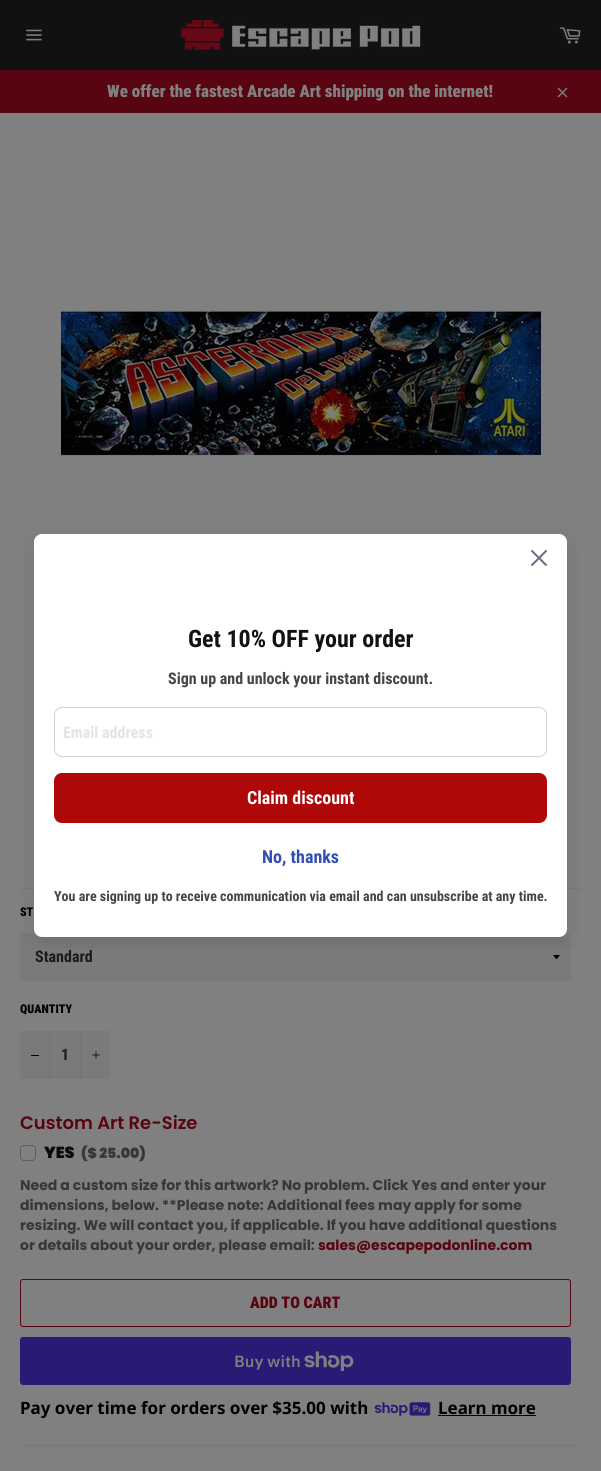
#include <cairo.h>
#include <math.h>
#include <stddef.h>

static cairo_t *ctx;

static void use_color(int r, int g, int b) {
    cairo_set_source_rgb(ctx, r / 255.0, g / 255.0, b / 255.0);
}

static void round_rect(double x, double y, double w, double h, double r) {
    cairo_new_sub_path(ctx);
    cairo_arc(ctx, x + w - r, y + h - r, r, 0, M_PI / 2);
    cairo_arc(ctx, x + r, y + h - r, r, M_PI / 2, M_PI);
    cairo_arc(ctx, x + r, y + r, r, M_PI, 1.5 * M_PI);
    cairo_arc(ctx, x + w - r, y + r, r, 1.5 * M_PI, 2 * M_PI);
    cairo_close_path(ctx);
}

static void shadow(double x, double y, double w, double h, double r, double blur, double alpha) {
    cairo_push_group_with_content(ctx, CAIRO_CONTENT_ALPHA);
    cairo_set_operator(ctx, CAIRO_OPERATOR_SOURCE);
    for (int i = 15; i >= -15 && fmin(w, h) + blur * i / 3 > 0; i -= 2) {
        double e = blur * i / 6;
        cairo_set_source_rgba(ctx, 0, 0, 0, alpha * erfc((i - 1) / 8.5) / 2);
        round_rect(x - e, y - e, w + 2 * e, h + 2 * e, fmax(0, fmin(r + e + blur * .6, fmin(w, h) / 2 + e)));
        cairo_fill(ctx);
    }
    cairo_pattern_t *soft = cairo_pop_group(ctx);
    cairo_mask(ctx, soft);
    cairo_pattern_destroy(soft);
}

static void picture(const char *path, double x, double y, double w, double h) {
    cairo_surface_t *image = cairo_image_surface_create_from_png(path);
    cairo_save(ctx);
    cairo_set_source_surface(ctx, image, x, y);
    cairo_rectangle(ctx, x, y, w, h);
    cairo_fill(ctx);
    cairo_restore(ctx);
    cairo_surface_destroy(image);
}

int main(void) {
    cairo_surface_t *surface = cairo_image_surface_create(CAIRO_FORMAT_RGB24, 601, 1471);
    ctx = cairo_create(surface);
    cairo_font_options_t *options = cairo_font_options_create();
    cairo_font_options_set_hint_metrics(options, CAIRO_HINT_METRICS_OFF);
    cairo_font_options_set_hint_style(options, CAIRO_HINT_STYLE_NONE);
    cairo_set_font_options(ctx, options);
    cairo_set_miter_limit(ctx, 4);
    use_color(17, 17, 17);
    cairo_paint(ctx);
    picture("img1.png", 26, 29, 16, 12);
    picture("img2.png", 181, 19, 240, 31);
    picture("img3.png", 559, 27, 22, 17);
    use_color(89, 4, 17);
    cairo_rectangle(ctx, 0, 70, 601, 43);
    cairo_fill(ctx);
    cairo_select_font_face(ctx, "Roboto Condensed Black", CAIRO_FONT_SLANT_NORMAL, CAIRO_FONT_WEIGHT_NORMAL);
    cairo_set_font_size(ctx, 17);
    use_color(128, 128, 128);
    cairo_move_to(ctx, 107, 97);
    cairo_show_text(ctx, "We offer the fastest Arcade Art shipping on the internet!");
    picture("img4.png", 557, 87, 11, 11);
    cairo_rectangle(ctx, 0, 113, 601, 1358);
    cairo_fill(ctx);
    use_color(120, 120, 120);
    cairo_rectangle(ctx, 20, 888, 561, 1);
    cairo_fill(ctx);
    use_color(122, 122, 122);
    cairo_rectangle(ctx, 20, 933, 551, 48);
    cairo_fill(ctx);
    use_color(0, 0, 0);
    cairo_new_path(ctx);
    cairo_move_to(ctx, 553, 955);
    cairo_curve_to(ctx, 557.5, 960.5, 555.5, 960.5, 560, 955);
    cairo_close_path(ctx);
    cairo_fill(ctx);
    cairo_save(ctx);
    cairo_rectangle(ctx, 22, 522, 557, 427);
    cairo_clip(ctx);
    use_color(18, 17, 39);
    shadow(34, 542, 533, 403, 8, 10, 0.1);
    cairo_restore(ctx);
    use_color(255, 255, 255);
    round_rect(34, 534, 533, 403, 8);
    cairo_fill(ctx);
    picture("img5.png", 531, 550, 16, 16);
    cairo_select_font_face(ctx, "Roboto Condensed", CAIRO_FONT_SLANT_NORMAL, CAIRO_FONT_WEIGHT_BOLD);
    cairo_set_font_size(ctx, 24);
    use_color(18, 18, 18);
    cairo_move_to(ctx, 188, 647);
    cairo_show_text(ctx, "Get 10% OFF your order");
    cairo_set_font_size(ctx, 16);
    use_color(69, 69, 69);
    cairo_move_to(ctx, 168, 684);
    cairo_show_text(ctx, "Sign up and unlock your instant discount.");
    round_rect(54.5, 707.5, 492, 49, 7.5);
    use_color(209, 209, 219);
    cairo_set_line_width(ctx, 1);
    cairo_stroke(ctx);
    use_color(227, 227, 233);
    cairo_move_to(ctx, 63, 738);
    cairo_show_text(ctx, "Email address");
    use_color(175, 8, 8);
    round_rect(54, 773, 493, 50, 8);
    cairo_fill(ctx);
    cairo_set_font_size(ctx, 18);
    use_color(255, 255, 255);
    cairo_move_to(ctx, 247, 804);
    cairo_show_text(ctx, "Claim discount");
    use_color(51, 79, 180);
    cairo_move_to(ctx, 262, 863);
    cairo_show_text(ctx, "No, thanks");
    cairo_set_font_size(ctx, 14);
    use_color(69, 69, 69);
    cairo_move_to(ctx, 54, 901);
    cairo_show_text(ctx, "You are signing up to receive communication via email and can unsubscribe at any time.");
    picture("img6.png", 61, 309, 480, 150);
    cairo_select_font_face(ctx, "Roboto Condensed Black", CAIRO_FONT_SLANT_NORMAL, CAIRO_FONT_WEIGHT_NORMAL);
    cairo_set_font_size(ctx, 12);
    use_color(0, 0, 0);
    cairo_move_to(ctx, 20, 916);
    cairo_show_text(ctx, "ST");
    cairo_select_font_face(ctx, "Roboto Condensed", CAIRO_FONT_SLANT_NORMAL, CAIRO_FONT_WEIGHT_BOLD);
    cairo_set_font_size(ctx, 16);
    use_color(26, 26, 26);
    cairo_move_to(ctx, 35, 962);
    cairo_show_text(ctx, "Standard");
    cairo_select_font_face(ctx, "Roboto Condensed Black", CAIRO_FONT_SLANT_NORMAL, CAIRO_FONT_WEIGHT_NORMAL);
    cairo_set_font_size(ctx, 12);
    use_color(0, 0, 0);
    cairo_move_to(ctx, 20, 1013);
    cairo_show_text(ctx, "QUANTITY");
    use_color(122, 122, 122);
    cairo_rectangle(ctx, 20, 1031, 90, 48);
    cairo_fill(ctx);
    use_color(116, 116, 116);
    cairo_rectangle(ctx, 49, 1031, 1, 48);
    cairo_fill(ctx);
    use_color(0, 0, 0);
    cairo_rectangle(ctx, 31, 1055, 8, 1);
    cairo_fill(ctx);
    cairo_select_font_face(ctx, "Roboto Condensed", CAIRO_FONT_SLANT_NORMAL, CAIRO_FONT_WEIGHT_BOLD);
    cairo_set_font_size(ctx, 16);
    use_color(26, 26, 26);
    cairo_move_to(ctx, 61, 1060);
    cairo_show_text(ctx, "1");
    use_color(116, 116, 116);
    cairo_rectangle(ctx, 80, 1031, 1, 48);
    cairo_fill(ctx);
    picture("img7.png", 92, 1051, 8, 8);
    cairo_select_font_face(ctx, "Poppins SemiBold", CAIRO_FONT_SLANT_NORMAL, CAIRO_FONT_WEIGHT_NORMAL);
    cairo_set_font_size(ctx, 18);
    use_color(89, 4, 17);
    cairo_move_to(ctx, 20, 1129);
    cairo_show_text(ctx, "Custom Art Re-Size");
    round_rect(20.5, 1145.5, 15, 15, 3.5);
    use_color(93, 93, 93);
    cairo_stroke(ctx);
    cairo_select_font_face(ctx, "Poppins Black", CAIRO_FONT_SLANT_NORMAL, CAIRO_FONT_WEIGHT_NORMAL);
    cairo_set_font_size(ctx, 16);
    use_color(9, 9, 9);
    cairo_move_to(ctx, 44, 1158);
    cairo_show_text(ctx, "YES");
    cairo_set_font_size(ctx, 14);
    use_color(55, 55, 55);
    cairo_move_to(ctx, 81, 1158);
    cairo_show_text(ctx, "($ 25.00)");
    cairo_select_font_face(ctx, "Poppins", CAIRO_FONT_SLANT_NORMAL, CAIRO_FONT_WEIGHT_BOLD);
    cairo_move_to(ctx, 20, 1190);
    cairo_show_text(ctx, "Need a custom size for this artwork? No problem. Click Yes and enter your");
    cairo_move_to(ctx, 20, 1210);
    cairo_show_text(ctx, "dimensions, below. **Please note: Additional fees may apply for some");
    cairo_move_to(ctx, 20, 1230);
    cairo_show_text(ctx, "resizing. We will contact you, if applicable. If you have additional questions");
    cairo_move_to(ctx, 20, 1250);
    cairo_show_text(ctx, "or details about your order, please email:");
    use_color(89, 4, 17);
    cairo_move_to(ctx, 318, 1250);
    cairo_show_text(ctx, "sales@escapepodonline.com");
    round_rect(20.5, 1279.5, 550, 47, 2.5);
    cairo_stroke(ctx);
    cairo_select_font_face(ctx, "Roboto Condensed Black", CAIRO_FONT_SLANT_NORMAL, CAIRO_FONT_WEIGHT_NORMAL);
    cairo_set_font_size(ctx, 16);
    cairo_move_to(ctx, 250, 1308);
    cairo_show_text(ctx, "ADD TO CART");
    use_color(42, 26, 118);
    round_rect(20, 1337, 551, 48, 3);
    cairo_fill(ctx);
    cairo_select_font_face(ctx, "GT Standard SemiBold", CAIRO_FONT_SLANT_NORMAL, CAIRO_FONT_WEIGHT_NORMAL);
    use_color(128, 128, 128);
    cairo_move_to(ctx, 234, 1367);
    cairo_show_text(ctx, "Buy with");
    picture("img8.png", 304, 1351, 50, 20);
    cairo_select_font_face(ctx, "Noto Sans", CAIRO_FONT_SLANT_NORMAL, CAIRO_FONT_WEIGHT_BOLD);
    cairo_set_font_size(ctx, 17);
    use_color(0, 0, 0);
    cairo_move_to(ctx, 20, 1414);
    cairo_show_text(ctx, "Pay over time for orders over $35.00 with");
    picture("img9.png", 374, 1402, 57, 14);
    cairo_move_to(ctx, 438, 1414);
    cairo_show_text(ctx, "Learn more");
    cairo_rectangle(ctx, 438, 1415, 98, 1);
    cairo_fill(ctx);
    use_color(120, 120, 120);
    cairo_rectangle(ctx, 20, 1445, 561, 1);
    cairo_fill(ctx);
    cairo_surface_write_to_png(surface, "result.png");
    cairo_font_options_destroy(options);
    cairo_destroy(ctx);
    cairo_surface_destroy(surface);
    return 0;
}
